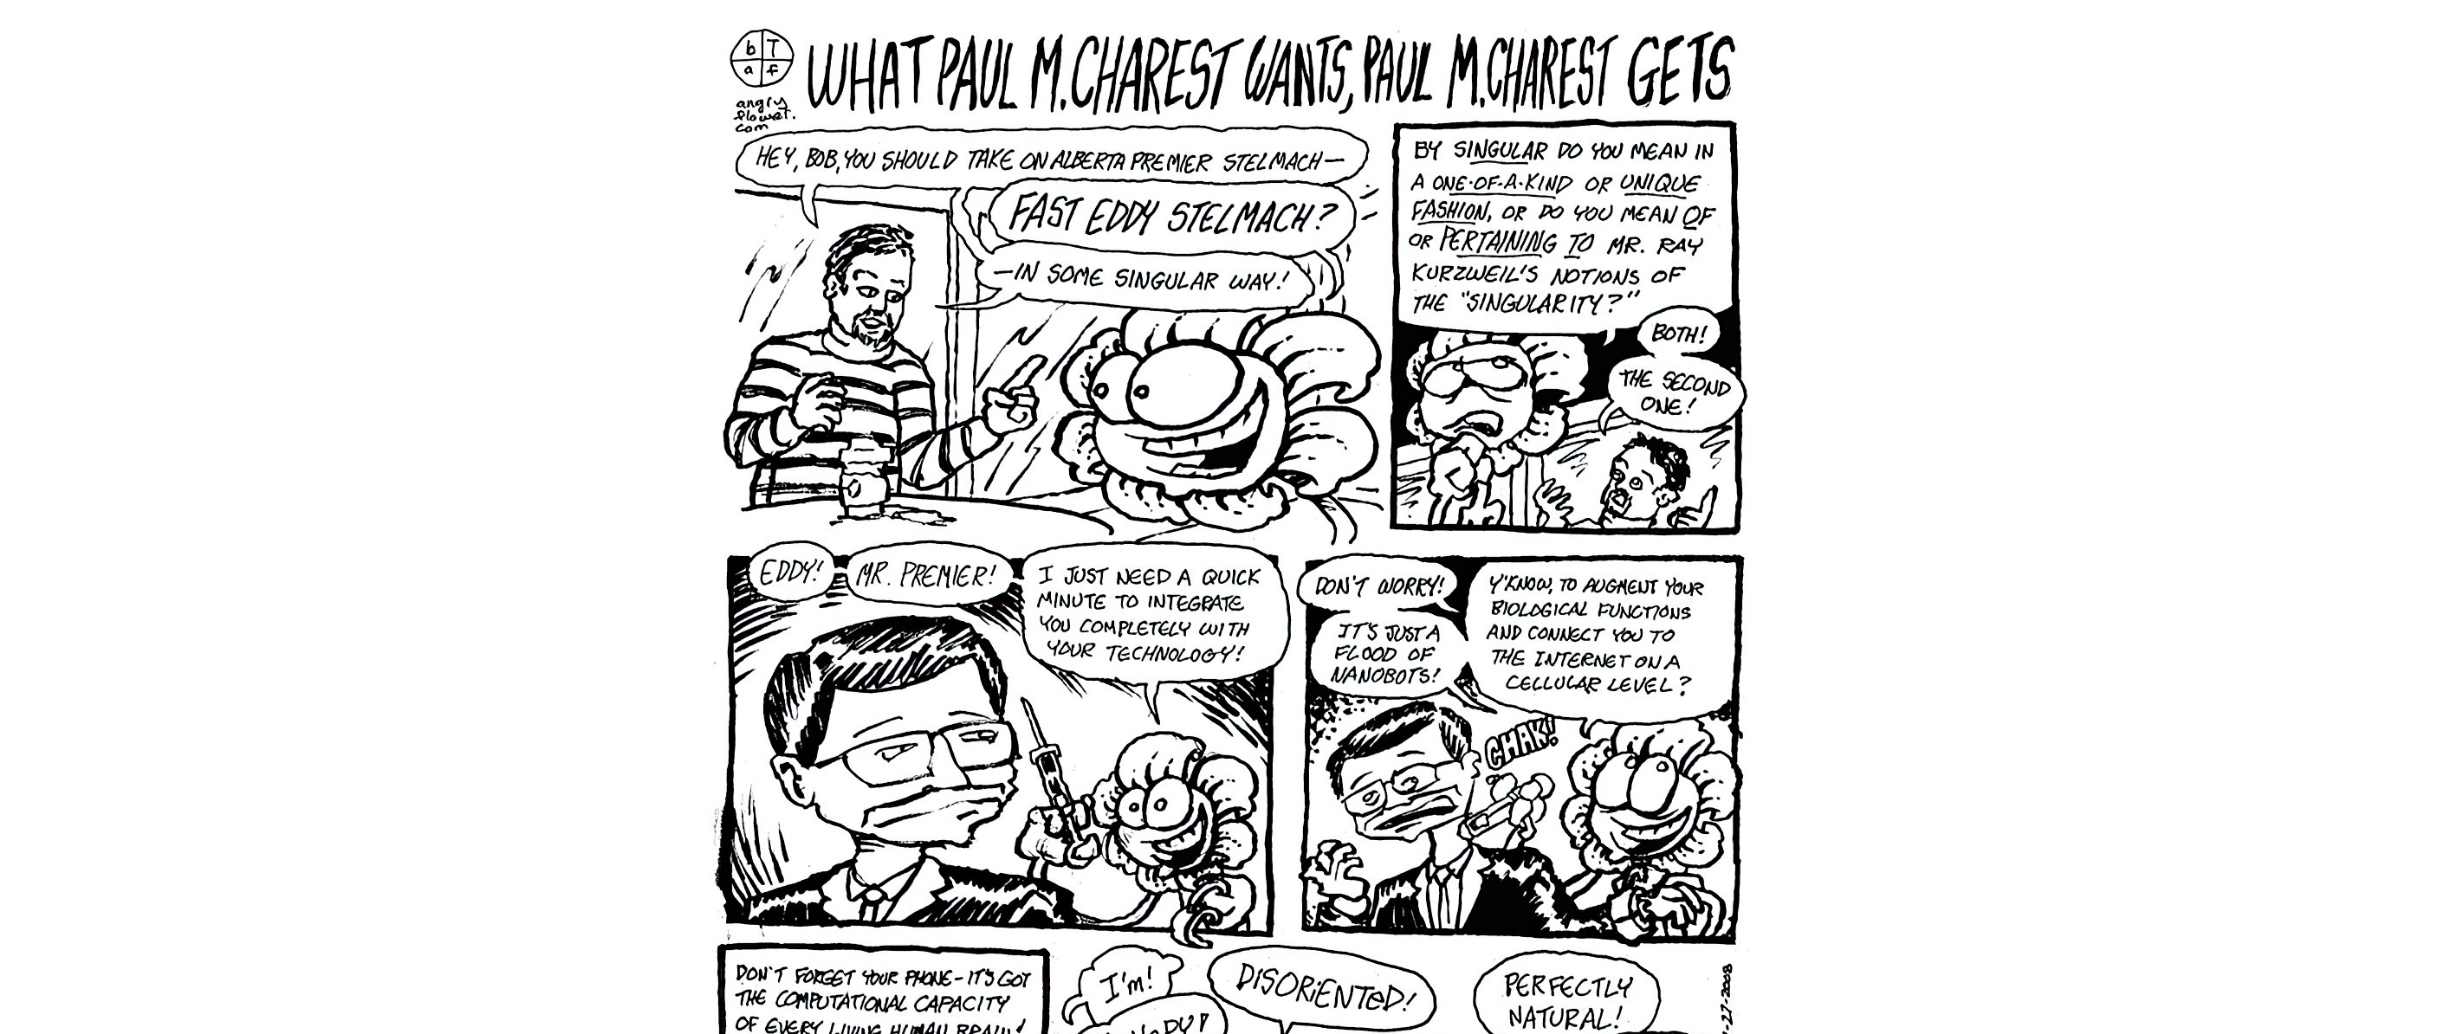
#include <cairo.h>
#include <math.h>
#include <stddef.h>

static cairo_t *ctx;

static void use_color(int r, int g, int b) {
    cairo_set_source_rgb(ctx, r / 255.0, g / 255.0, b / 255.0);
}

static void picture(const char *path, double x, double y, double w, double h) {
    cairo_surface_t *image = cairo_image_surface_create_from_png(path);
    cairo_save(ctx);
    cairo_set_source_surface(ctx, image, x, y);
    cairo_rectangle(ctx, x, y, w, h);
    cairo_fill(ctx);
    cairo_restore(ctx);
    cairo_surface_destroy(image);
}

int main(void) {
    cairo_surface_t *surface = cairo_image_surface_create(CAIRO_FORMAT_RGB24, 2457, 1034);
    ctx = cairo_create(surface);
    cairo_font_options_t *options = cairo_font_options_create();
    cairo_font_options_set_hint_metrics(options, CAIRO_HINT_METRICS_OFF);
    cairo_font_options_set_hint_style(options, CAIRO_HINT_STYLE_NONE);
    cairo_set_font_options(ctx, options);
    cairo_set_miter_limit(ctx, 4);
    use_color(255, 255, 255);
    cairo_paint(ctx);
    picture("img1.png", 709, 26, 1040, 1008);
    cairo_surface_write_to_png(surface, "result.png");
    cairo_font_options_destroy(options);
    cairo_destroy(ctx);
    cairo_surface_destroy(surface);
    return 0;
}
